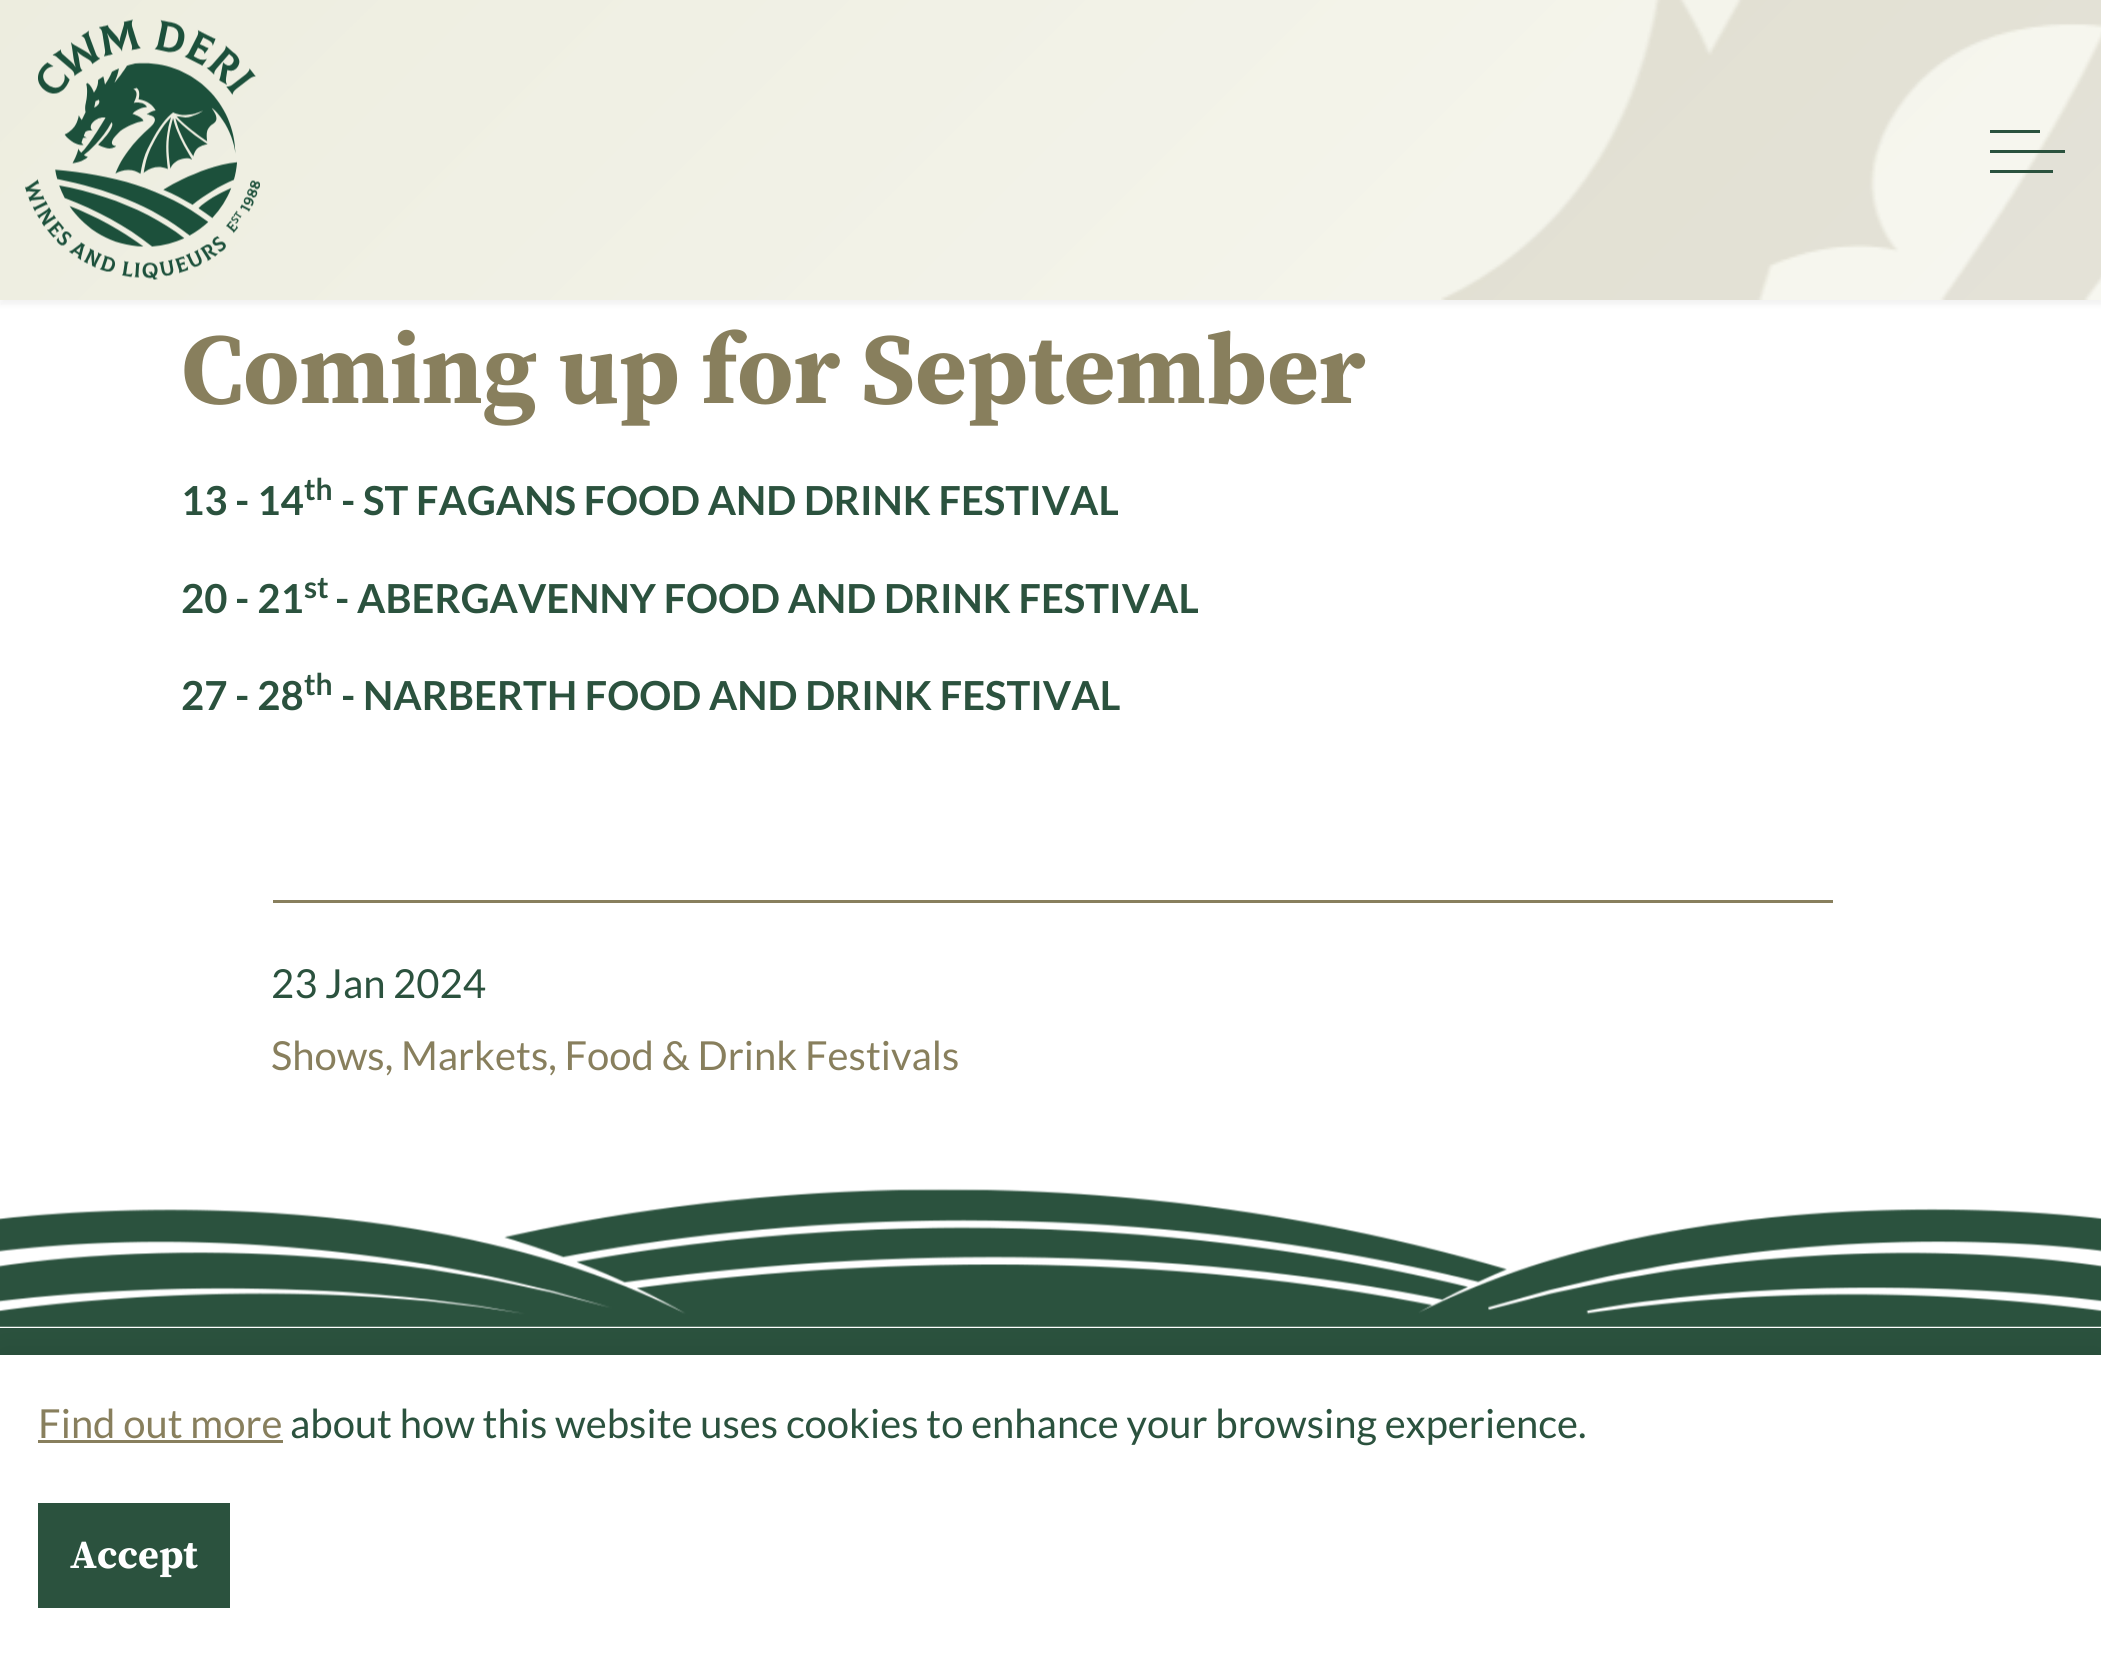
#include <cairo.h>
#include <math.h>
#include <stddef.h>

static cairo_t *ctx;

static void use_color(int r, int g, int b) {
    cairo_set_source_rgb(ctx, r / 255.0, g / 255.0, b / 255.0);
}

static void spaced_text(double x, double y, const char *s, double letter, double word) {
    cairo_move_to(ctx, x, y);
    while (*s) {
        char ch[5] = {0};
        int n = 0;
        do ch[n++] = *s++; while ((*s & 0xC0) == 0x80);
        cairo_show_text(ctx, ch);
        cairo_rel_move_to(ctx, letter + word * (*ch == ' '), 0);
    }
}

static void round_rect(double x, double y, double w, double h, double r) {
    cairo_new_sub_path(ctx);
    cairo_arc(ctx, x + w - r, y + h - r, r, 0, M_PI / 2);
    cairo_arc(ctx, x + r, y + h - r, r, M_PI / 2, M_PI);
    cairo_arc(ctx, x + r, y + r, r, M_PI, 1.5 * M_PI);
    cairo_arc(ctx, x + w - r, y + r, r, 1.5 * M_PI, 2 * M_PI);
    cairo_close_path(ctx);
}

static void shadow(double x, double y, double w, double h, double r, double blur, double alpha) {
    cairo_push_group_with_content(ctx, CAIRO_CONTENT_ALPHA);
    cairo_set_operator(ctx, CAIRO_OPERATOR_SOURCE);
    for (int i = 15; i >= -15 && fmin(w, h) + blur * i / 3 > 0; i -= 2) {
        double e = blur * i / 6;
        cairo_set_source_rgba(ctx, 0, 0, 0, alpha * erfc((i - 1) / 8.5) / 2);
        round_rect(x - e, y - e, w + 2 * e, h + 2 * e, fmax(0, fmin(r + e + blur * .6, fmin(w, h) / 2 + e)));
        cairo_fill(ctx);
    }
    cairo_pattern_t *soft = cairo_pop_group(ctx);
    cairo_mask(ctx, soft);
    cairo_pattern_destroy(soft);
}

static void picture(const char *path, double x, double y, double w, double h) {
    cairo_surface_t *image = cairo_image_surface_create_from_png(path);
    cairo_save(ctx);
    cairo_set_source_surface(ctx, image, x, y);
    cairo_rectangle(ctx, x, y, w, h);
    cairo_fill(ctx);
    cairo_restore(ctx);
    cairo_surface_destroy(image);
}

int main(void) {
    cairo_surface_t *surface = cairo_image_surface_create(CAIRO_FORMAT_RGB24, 2101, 1657);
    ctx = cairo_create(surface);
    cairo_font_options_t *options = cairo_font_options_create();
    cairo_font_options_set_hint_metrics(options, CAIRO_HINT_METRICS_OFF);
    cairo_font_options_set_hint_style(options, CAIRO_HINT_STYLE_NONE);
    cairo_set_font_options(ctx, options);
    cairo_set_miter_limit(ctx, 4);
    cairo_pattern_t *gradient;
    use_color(255, 255, 255);
    cairo_paint(ctx);
    use_color(0, 0, 0);
    shadow(0, 5, 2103, 300, 0, 2.5, 0.05);
    gradient = cairo_pattern_create_linear(451, -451, 1652, 751);
    cairo_pattern_add_color_stop_rgba(gradient, 0, 0.929, 0.929, 0.875, 1);
    cairo_pattern_add_color_stop_rgba(gradient, 1, 0.969, 0.969, 0.941, 1);
    cairo_set_source(ctx, gradient);
    cairo_pattern_destroy(gradient);
    cairo_rectangle(ctx, 0, 0, 2101, 300);
    cairo_fill(ctx);
    picture("img1.png", 1441, 0, 660, 300);
    picture("img2.png", 25, 19, 235, 261);
    use_color(43, 82, 62);
    cairo_rectangle(ctx, 1990, 150, 75, 3);
    cairo_fill(ctx);
    cairo_rectangle(ctx, 1990, 130, 50, 3);
    cairo_fill(ctx);
    cairo_rectangle(ctx, 1990, 170, 63, 3);
    cairo_fill(ctx);
    cairo_select_font_face(ctx, "Source Serif Pro", CAIRO_FONT_SLANT_NORMAL, CAIRO_FONT_WEIGHT_BOLD);
    cairo_set_font_size(ctx, 100);
    use_color(136, 127, 93);
    spaced_text(181, 403, "Coming up for September", -0.15, 0);
    cairo_select_font_face(ctx, "Lato", CAIRO_FONT_SLANT_NORMAL, CAIRO_FONT_WEIGHT_BOLD);
    cairo_set_font_size(ctx, 40);
    use_color(43, 82, 62);
    cairo_move_to(ctx, 181, 515);
    cairo_show_text(ctx, "13 - 14");
    cairo_set_font_size(ctx, 30);
    cairo_move_to(ctx, 304, 500);
    cairo_show_text(ctx, "th");
    cairo_set_font_size(ctx, 40);
    cairo_move_to(ctx, 341, 515);
    cairo_show_text(ctx, "- ST FAGANS FOOD AND DRINK FESTIVAL");
    cairo_move_to(ctx, 181, 613);
    cairo_show_text(ctx, "20 - 21");
    cairo_set_font_size(ctx, 30);
    cairo_move_to(ctx, 304, 598);
    cairo_show_text(ctx, "st");
    cairo_set_font_size(ctx, 40);
    cairo_move_to(ctx, 335, 613);
    cairo_show_text(ctx, "- ABERGAVENNY FOOD AND DRINK FESTIVAL");
    cairo_move_to(ctx, 181, 710);
    cairo_show_text(ctx, "27 - 28");
    cairo_set_font_size(ctx, 30);
    cairo_move_to(ctx, 304, 695);
    cairo_show_text(ctx, "th");
    cairo_set_font_size(ctx, 40);
    cairo_move_to(ctx, 341, 710);
    cairo_show_text(ctx, "- NARBERTH FOOD AND DRINK FESTIVAL");
    use_color(136, 127, 93);
    cairo_rectangle(ctx, 273, 900, 1560, 3);
    cairo_fill(ctx);
    cairo_select_font_face(ctx, "Lato", CAIRO_FONT_SLANT_NORMAL, CAIRO_FONT_WEIGHT_NORMAL);
    use_color(43, 82, 62);
    cairo_move_to(ctx, 271, 998);
    cairo_show_text(ctx, "23 Jan 2024");
    use_color(136, 127, 93);
    cairo_move_to(ctx, 271, 1070);
    cairo_show_text(ctx, "Shows, Markets, Food & Drink Festivals");
    picture("img3.png", 0, 1188, 2101, 139);
    use_color(43, 82, 62);
    cairo_rectangle(ctx, 0, 1328, 2101, 27);
    cairo_fill(ctx);
    use_color(0, 0, 0);
    shadow(0, 1355, 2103, 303, 0, 19, 0.1);
    use_color(255, 255, 255);
    cairo_rectangle(ctx, 0, 1355, 2101, 302);
    cairo_fill(ctx);
    use_color(136, 127, 93);
    cairo_move_to(ctx, 38, 1438);
    cairo_show_text(ctx, "Find out more");
    cairo_rectangle(ctx, 38, 1440, 245, 3);
    cairo_fill(ctx);
    use_color(43, 82, 62);
    cairo_move_to(ctx, 290, 1438);
    cairo_show_text(ctx, "about how this website uses cookies to enhance your browsing experience.");
    cairo_rectangle(ctx, 38, 1503, 192, 105);
    cairo_fill(ctx);
    cairo_select_font_face(ctx, "Source Serif Pro", CAIRO_FONT_SLANT_NORMAL, CAIRO_FONT_WEIGHT_BOLD);
    use_color(255, 255, 255);
    cairo_move_to(ctx, 70, 1568);
    cairo_show_text(ctx, "Accept");
    cairo_surface_write_to_png(surface, "result.png");
    cairo_font_options_destroy(options);
    cairo_destroy(ctx);
    cairo_surface_destroy(surface);
    return 0;
}
